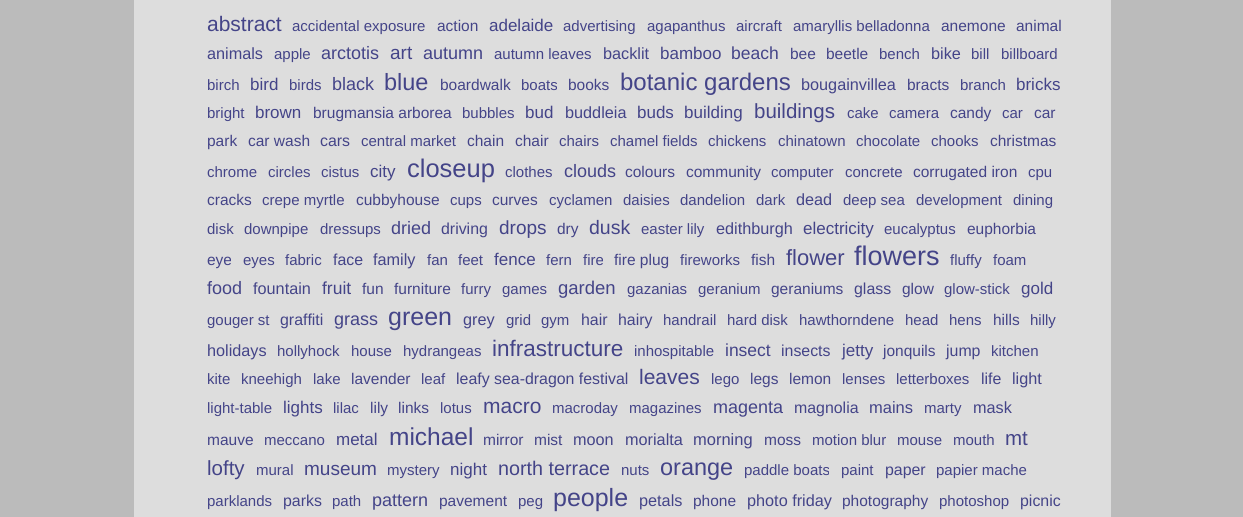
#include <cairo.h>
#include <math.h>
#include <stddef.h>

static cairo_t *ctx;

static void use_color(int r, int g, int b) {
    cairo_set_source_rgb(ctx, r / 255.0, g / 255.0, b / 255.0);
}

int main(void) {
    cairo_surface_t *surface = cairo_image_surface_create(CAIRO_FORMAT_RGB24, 1243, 517);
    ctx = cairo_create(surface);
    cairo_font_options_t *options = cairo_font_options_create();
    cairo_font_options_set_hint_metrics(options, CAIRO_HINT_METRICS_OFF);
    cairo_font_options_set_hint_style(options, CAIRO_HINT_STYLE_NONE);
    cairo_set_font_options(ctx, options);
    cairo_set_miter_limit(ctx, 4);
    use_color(187, 187, 187);
    cairo_paint(ctx);
    use_color(221, 221, 221);
    cairo_rectangle(ctx, 134, 0, 977, 517);
    cairo_fill(ctx);
    cairo_select_font_face(ctx, "Liberation Sans", CAIRO_FONT_SLANT_NORMAL, CAIRO_FONT_WEIGHT_NORMAL);
    cairo_set_font_size(ctx, 21);
    use_color(68, 68, 136);
    cairo_move_to(ctx, 207, 31);
    cairo_show_text(ctx, "abstract");
    cairo_set_font_size(ctx, 15);
    cairo_move_to(ctx, 292, 31);
    cairo_show_text(ctx, "accidental exposure");
    cairo_set_font_size(ctx, 15.5);
    cairo_move_to(ctx, 437, 31);
    cairo_show_text(ctx, "action");
    cairo_set_font_size(ctx, 17);
    cairo_move_to(ctx, 489, 31);
    cairo_show_text(ctx, "adelaide");
    cairo_set_font_size(ctx, 15);
    cairo_move_to(ctx, 563, 31);
    cairo_show_text(ctx, "advertising");
    cairo_move_to(ctx, 647, 31);
    cairo_show_text(ctx, "agapanthus");
    cairo_move_to(ctx, 736, 31);
    cairo_show_text(ctx, "aircraft");
    cairo_move_to(ctx, 793, 31);
    cairo_show_text(ctx, "amaryllis belladonna");
    cairo_set_font_size(ctx, 15.5);
    cairo_move_to(ctx, 941, 31);
    cairo_show_text(ctx, "anemone");
    cairo_move_to(ctx, 1016, 31);
    cairo_show_text(ctx, "animal");
    cairo_set_font_size(ctx, 16.25);
    cairo_move_to(ctx, 207, 59);
    cairo_show_text(ctx, "animals");
    cairo_set_font_size(ctx, 15);
    cairo_move_to(ctx, 274, 59);
    cairo_show_text(ctx, "apple");
    cairo_set_font_size(ctx, 18);
    cairo_move_to(ctx, 321, 59);
    cairo_show_text(ctx, "arctotis");
    cairo_set_font_size(ctx, 19);
    cairo_move_to(ctx, 390, 59);
    cairo_show_text(ctx, "art");
    cairo_set_font_size(ctx, 18);
    cairo_move_to(ctx, 423, 59);
    cairo_show_text(ctx, "autumn");
    cairo_set_font_size(ctx, 15);
    cairo_move_to(ctx, 494, 59);
    cairo_show_text(ctx, "autumn leaves");
    cairo_set_font_size(ctx, 16.25);
    cairo_move_to(ctx, 603, 59);
    cairo_show_text(ctx, "backlit");
    cairo_set_font_size(ctx, 17);
    cairo_move_to(ctx, 660, 59);
    cairo_show_text(ctx, "bamboo");
    cairo_set_font_size(ctx, 17.5);
    cairo_move_to(ctx, 731, 59);
    cairo_show_text(ctx, "beach");
    cairo_set_font_size(ctx, 15.5);
    cairo_move_to(ctx, 790, 59);
    cairo_show_text(ctx, "bee");
    cairo_move_to(ctx, 826, 59);
    cairo_show_text(ctx, "beetle");
    cairo_set_font_size(ctx, 15);
    cairo_move_to(ctx, 879, 59);
    cairo_show_text(ctx, "bench");
    cairo_set_font_size(ctx, 16.25);
    cairo_move_to(ctx, 931, 59);
    cairo_show_text(ctx, "bike");
    cairo_set_font_size(ctx, 15);
    cairo_move_to(ctx, 971, 59);
    cairo_show_text(ctx, "bill");
    cairo_move_to(ctx, 1001, 59);
    cairo_show_text(ctx, "billboard");
    cairo_move_to(ctx, 207, 90);
    cairo_show_text(ctx, "birch");
    cairo_set_font_size(ctx, 17);
    cairo_move_to(ctx, 250, 90);
    cairo_show_text(ctx, "bird");
    cairo_set_font_size(ctx, 15);
    cairo_move_to(ctx, 289, 90);
    cairo_show_text(ctx, "birds");
    cairo_set_font_size(ctx, 18);
    cairo_move_to(ctx, 332, 90);
    cairo_show_text(ctx, "black");
    cairo_set_font_size(ctx, 23.5);
    cairo_move_to(ctx, 384, 90);
    cairo_show_text(ctx, "blue");
    cairo_set_font_size(ctx, 15.5);
    cairo_move_to(ctx, 440, 90);
    cairo_show_text(ctx, "boardwalk");
    cairo_set_font_size(ctx, 15);
    cairo_move_to(ctx, 521, 90);
    cairo_show_text(ctx, "boats");
    cairo_set_font_size(ctx, 15.5);
    cairo_move_to(ctx, 568, 90);
    cairo_show_text(ctx, "books");
    cairo_set_font_size(ctx, 24);
    cairo_move_to(ctx, 620, 90);
    cairo_show_text(ctx, "botanic gardens");
    cairo_set_font_size(ctx, 16.25);
    cairo_move_to(ctx, 801, 90);
    cairo_show_text(ctx, "bougainvillea");
    cairo_set_font_size(ctx, 15.5);
    cairo_move_to(ctx, 907, 90);
    cairo_show_text(ctx, "bracts");
    cairo_set_font_size(ctx, 15);
    cairo_move_to(ctx, 960, 90);
    cairo_show_text(ctx, "branch");
    cairo_set_font_size(ctx, 17);
    cairo_move_to(ctx, 1016, 90);
    cairo_show_text(ctx, "bricks");
    cairo_set_font_size(ctx, 15);
    cairo_move_to(ctx, 207, 118);
    cairo_show_text(ctx, "bright");
    cairo_set_font_size(ctx, 17);
    cairo_move_to(ctx, 255, 118);
    cairo_show_text(ctx, "brown");
    cairo_set_font_size(ctx, 15.5);
    cairo_move_to(ctx, 313, 118);
    cairo_show_text(ctx, "brugmansia arborea");
    cairo_set_font_size(ctx, 15);
    cairo_move_to(ctx, 462, 118);
    cairo_show_text(ctx, "bubbles");
    cairo_set_font_size(ctx, 17);
    cairo_move_to(ctx, 525, 118);
    cairo_show_text(ctx, "bud");
    cairo_set_font_size(ctx, 16.25);
    cairo_move_to(ctx, 565, 118);
    cairo_show_text(ctx, "buddleia");
    cairo_set_font_size(ctx, 17);
    cairo_move_to(ctx, 637, 118);
    cairo_show_text(ctx, "buds");
    cairo_move_to(ctx, 684, 118);
    cairo_show_text(ctx, "building");
    cairo_set_font_size(ctx, 20.5);
    cairo_move_to(ctx, 754, 118);
    cairo_show_text(ctx, "buildings");
    cairo_set_font_size(ctx, 15);
    cairo_move_to(ctx, 847, 118);
    cairo_show_text(ctx, "cake");
    cairo_move_to(ctx, 889, 118);
    cairo_show_text(ctx, "camera");
    cairo_set_font_size(ctx, 15.5);
    cairo_move_to(ctx, 950, 118);
    cairo_show_text(ctx, "candy");
    cairo_set_font_size(ctx, 15);
    cairo_move_to(ctx, 1002, 118);
    cairo_show_text(ctx, "car");
    cairo_set_font_size(ctx, 15.5);
    cairo_move_to(ctx, 1034, 118);
    cairo_show_text(ctx, "car");
    cairo_move_to(ctx, 207, 146);
    cairo_show_text(ctx, "park");
    cairo_move_to(ctx, 248, 146);
    cairo_show_text(ctx, "car wash");
    cairo_set_font_size(ctx, 15.9);
    cairo_move_to(ctx, 320, 146);
    cairo_show_text(ctx, "cars");
    cairo_set_font_size(ctx, 15);
    cairo_move_to(ctx, 361, 146);
    cairo_show_text(ctx, "central market");
    cairo_set_font_size(ctx, 15.5);
    cairo_move_to(ctx, 467, 146);
    cairo_show_text(ctx, "chain");
    cairo_move_to(ctx, 515, 146);
    cairo_show_text(ctx, "chair");
    cairo_set_font_size(ctx, 15);
    cairo_move_to(ctx, 559, 146);
    cairo_show_text(ctx, "chairs");
    cairo_move_to(ctx, 610, 146);
    cairo_show_text(ctx, "chamel fields");
    cairo_move_to(ctx, 708, 146);
    cairo_show_text(ctx, "chickens");
    cairo_move_to(ctx, 778, 146);
    cairo_show_text(ctx, "chinatown");
    cairo_move_to(ctx, 856, 146);
    cairo_show_text(ctx, "chocolate");
    cairo_move_to(ctx, 931, 146);
    cairo_show_text(ctx, "chooks");
    cairo_set_font_size(ctx, 15.5);
    cairo_move_to(ctx, 990, 146);
    cairo_show_text(ctx, "christmas");
    cairo_set_font_size(ctx, 15);
    cairo_move_to(ctx, 207, 177);
    cairo_show_text(ctx, "chrome");
    cairo_move_to(ctx, 268, 177);
    cairo_show_text(ctx, "circles");
    cairo_move_to(ctx, 321, 177);
    cairo_show_text(ctx, "cistus");
    cairo_set_font_size(ctx, 17);
    cairo_move_to(ctx, 370, 177);
    cairo_show_text(ctx, "city");
    cairo_set_font_size(ctx, 25.5);
    cairo_move_to(ctx, 407, 177);
    cairo_show_text(ctx, "closeup");
    cairo_set_font_size(ctx, 15);
    cairo_move_to(ctx, 505, 177);
    cairo_show_text(ctx, "clothes");
    cairo_set_font_size(ctx, 18);
    cairo_move_to(ctx, 564, 177);
    cairo_show_text(ctx, "clouds");
    cairo_set_font_size(ctx, 15.5);
    cairo_move_to(ctx, 625, 177);
    cairo_show_text(ctx, "colours");
    cairo_move_to(ctx, 686, 177);
    cairo_show_text(ctx, "community");
    cairo_set_font_size(ctx, 15);
    cairo_move_to(ctx, 771, 177);
    cairo_show_text(ctx, "computer");
    cairo_move_to(ctx, 845, 177);
    cairo_show_text(ctx, "concrete");
    cairo_set_font_size(ctx, 15.5);
    cairo_move_to(ctx, 913, 177);
    cairo_show_text(ctx, "corrugated iron");
    cairo_set_font_size(ctx, 15);
    cairo_move_to(ctx, 1028, 177);
    cairo_show_text(ctx, "cpu");
    cairo_set_font_size(ctx, 15.5);
    cairo_move_to(ctx, 207, 205);
    cairo_show_text(ctx, "cracks");
    cairo_set_font_size(ctx, 15);
    cairo_move_to(ctx, 262, 205);
    cairo_show_text(ctx, "crepe myrtle");
    cairo_set_font_size(ctx, 15.5);
    cairo_move_to(ctx, 356, 205);
    cairo_show_text(ctx, "cubbyhouse");
    cairo_set_font_size(ctx, 15);
    cairo_move_to(ctx, 450, 205);
    cairo_show_text(ctx, "cups");
    cairo_set_font_size(ctx, 15.5);
    cairo_move_to(ctx, 492, 205);
    cairo_show_text(ctx, "curves");
    cairo_set_font_size(ctx, 15);
    cairo_move_to(ctx, 549, 205);
    cairo_show_text(ctx, "cyclamen");
    cairo_move_to(ctx, 623, 205);
    cairo_show_text(ctx, "daisies");
    cairo_move_to(ctx, 680, 205);
    cairo_show_text(ctx, "dandelion");
    cairo_move_to(ctx, 756, 205);
    cairo_show_text(ctx, "dark");
    cairo_set_font_size(ctx, 16.25);
    cairo_move_to(ctx, 796, 205);
    cairo_show_text(ctx, "dead");
    cairo_set_font_size(ctx, 15);
    cairo_move_to(ctx, 843, 205);
    cairo_show_text(ctx, "deep sea");
    cairo_move_to(ctx, 916, 205);
    cairo_show_text(ctx, "development");
    cairo_move_to(ctx, 1013, 205);
    cairo_show_text(ctx, "dining");
    cairo_move_to(ctx, 207, 234);
    cairo_show_text(ctx, "disk");
    cairo_move_to(ctx, 244, 234);
    cairo_show_text(ctx, "downpipe");
    cairo_move_to(ctx, 320, 234);
    cairo_show_text(ctx, "dressups");
    cairo_set_font_size(ctx, 18);
    cairo_move_to(ctx, 391, 234);
    cairo_show_text(ctx, "dried");
    cairo_set_font_size(ctx, 15.9);
    cairo_move_to(ctx, 441, 234);
    cairo_show_text(ctx, "driving");
    cairo_set_font_size(ctx, 19);
    cairo_move_to(ctx, 499, 234);
    cairo_show_text(ctx, "drops");
    cairo_set_font_size(ctx, 15.5);
    cairo_move_to(ctx, 557, 234);
    cairo_show_text(ctx, "dry");
    cairo_set_font_size(ctx, 19.5);
    cairo_move_to(ctx, 589, 234);
    cairo_show_text(ctx, "dusk");
    cairo_set_font_size(ctx, 15);
    cairo_move_to(ctx, 641, 234);
    cairo_show_text(ctx, "easter lily");
    cairo_set_font_size(ctx, 16.25);
    cairo_move_to(ctx, 716, 234);
    cairo_show_text(ctx, "edithburgh");
    cairo_set_font_size(ctx, 17);
    cairo_move_to(ctx, 803, 234);
    cairo_show_text(ctx, "electricity");
    cairo_set_font_size(ctx, 15);
    cairo_move_to(ctx, 884, 234);
    cairo_show_text(ctx, "eucalyptus");
    cairo_set_font_size(ctx, 15.5);
    cairo_move_to(ctx, 967, 234);
    cairo_show_text(ctx, "euphorbia");
    cairo_move_to(ctx, 207, 265);
    cairo_show_text(ctx, "eye");
    cairo_set_font_size(ctx, 15);
    cairo_move_to(ctx, 243, 265);
    cairo_show_text(ctx, "eyes");
    cairo_move_to(ctx, 285, 265);
    cairo_show_text(ctx, "fabric");
    cairo_set_font_size(ctx, 15.9);
    cairo_move_to(ctx, 333, 265);
    cairo_show_text(ctx, "face");
    cairo_set_font_size(ctx, 16.25);
    cairo_move_to(ctx, 373, 265);
    cairo_show_text(ctx, "family");
    cairo_set_font_size(ctx, 15);
    cairo_move_to(ctx, 427, 265);
    cairo_show_text(ctx, "fan");
    cairo_move_to(ctx, 458, 265);
    cairo_show_text(ctx, "feet");
    cairo_set_font_size(ctx, 17);
    cairo_move_to(ctx, 494, 265);
    cairo_show_text(ctx, "fence");
    cairo_set_font_size(ctx, 15);
    cairo_move_to(ctx, 546, 265);
    cairo_show_text(ctx, "fern");
    cairo_move_to(ctx, 583, 265);
    cairo_show_text(ctx, "fire");
    cairo_set_font_size(ctx, 15.5);
    cairo_move_to(ctx, 614, 265);
    cairo_show_text(ctx, "fire plug");
    cairo_set_font_size(ctx, 15);
    cairo_move_to(ctx, 680, 265);
    cairo_show_text(ctx, "fireworks");
    cairo_set_font_size(ctx, 15.5);
    cairo_move_to(ctx, 751, 265);
    cairo_show_text(ctx, "fish");
    cairo_set_font_size(ctx, 22);
    cairo_move_to(ctx, 786, 265);
    cairo_show_text(ctx, "flower");
    cairo_set_font_size(ctx, 27);
    cairo_move_to(ctx, 854, 265);
    cairo_show_text(ctx, "flowers");
    cairo_set_font_size(ctx, 15);
    cairo_move_to(ctx, 950, 265);
    cairo_show_text(ctx, "fluffy");
    cairo_move_to(ctx, 993, 265);
    cairo_show_text(ctx, "foam");
    cairo_set_font_size(ctx, 18);
    cairo_move_to(ctx, 207, 294);
    cairo_show_text(ctx, "food");
    cairo_set_font_size(ctx, 16.25);
    cairo_move_to(ctx, 253, 294);
    cairo_show_text(ctx, "fountain");
    cairo_set_font_size(ctx, 17.5);
    cairo_move_to(ctx, 322, 294);
    cairo_show_text(ctx, "fruit");
    cairo_set_font_size(ctx, 15.5);
    cairo_move_to(ctx, 362, 294);
    cairo_show_text(ctx, "fun");
    cairo_move_to(ctx, 394, 294);
    cairo_show_text(ctx, "furniture");
    cairo_set_font_size(ctx, 15);
    cairo_move_to(ctx, 461, 294);
    cairo_show_text(ctx, "furry");
    cairo_move_to(ctx, 502, 294);
    cairo_show_text(ctx, "games");
    cairo_set_font_size(ctx, 18.5);
    cairo_move_to(ctx, 558, 294);
    cairo_show_text(ctx, "garden");
    cairo_set_font_size(ctx, 15);
    cairo_move_to(ctx, 627, 294);
    cairo_show_text(ctx, "gazanias");
    cairo_move_to(ctx, 698, 294);
    cairo_show_text(ctx, "geranium");
    cairo_set_font_size(ctx, 15.5);
    cairo_move_to(ctx, 771, 294);
    cairo_show_text(ctx, "geraniums");
    cairo_set_font_size(ctx, 15.9);
    cairo_move_to(ctx, 854, 294);
    cairo_show_text(ctx, "glass");
    cairo_set_font_size(ctx, 15.5);
    cairo_move_to(ctx, 902, 294);
    cairo_show_text(ctx, "glow");
    cairo_set_font_size(ctx, 15);
    cairo_move_to(ctx, 944, 294);
    cairo_show_text(ctx, "glow-stick");
    cairo_set_font_size(ctx, 17);
    cairo_move_to(ctx, 1021, 294);
    cairo_show_text(ctx, "gold");
    cairo_set_font_size(ctx, 15);
    cairo_move_to(ctx, 207, 325);
    cairo_show_text(ctx, "gouger st");
    cairo_set_font_size(ctx, 15.9);
    cairo_move_to(ctx, 280, 325);
    cairo_show_text(ctx, "graffiti");
    cairo_set_font_size(ctx, 18);
    cairo_move_to(ctx, 334, 325);
    cairo_show_text(ctx, "grass");
    cairo_set_font_size(ctx, 25);
    cairo_move_to(ctx, 388, 325);
    cairo_show_text(ctx, "green");
    cairo_set_font_size(ctx, 16.25);
    cairo_move_to(ctx, 463, 325);
    cairo_show_text(ctx, "grey");
    cairo_set_font_size(ctx, 15);
    cairo_move_to(ctx, 506, 325);
    cairo_show_text(ctx, "grid");
    cairo_move_to(ctx, 541, 325);
    cairo_show_text(ctx, "gym");
    cairo_set_font_size(ctx, 15.9);
    cairo_move_to(ctx, 581, 325);
    cairo_show_text(ctx, "hair");
    cairo_move_to(ctx, 618, 325);
    cairo_show_text(ctx, "hairy");
    cairo_set_font_size(ctx, 15);
    cairo_move_to(ctx, 663, 325);
    cairo_show_text(ctx, "handrail");
    cairo_move_to(ctx, 727, 325);
    cairo_show_text(ctx, "hard disk");
    cairo_move_to(ctx, 799, 325);
    cairo_show_text(ctx, "hawthorndene");
    cairo_move_to(ctx, 905, 325);
    cairo_show_text(ctx, "head");
    cairo_move_to(ctx, 949, 325);
    cairo_show_text(ctx, "hens");
    cairo_set_font_size(ctx, 15.5);
    cairo_move_to(ctx, 993, 325);
    cairo_show_text(ctx, "hills");
    cairo_set_font_size(ctx, 15);
    cairo_move_to(ctx, 1030, 325);
    cairo_show_text(ctx, "hilly");
    cairo_set_font_size(ctx, 16.25);
    cairo_move_to(ctx, 207, 356);
    cairo_show_text(ctx, "holidays");
    cairo_set_font_size(ctx, 15);
    cairo_move_to(ctx, 277, 356);
    cairo_show_text(ctx, "hollyhock");
    cairo_move_to(ctx, 351, 356);
    cairo_show_text(ctx, "house");
    cairo_move_to(ctx, 403, 356);
    cairo_show_text(ctx, "hydrangeas");
    cairo_set_font_size(ctx, 22.5);
    cairo_move_to(ctx, 492, 356);
    cairo_show_text(ctx, "infrastructure");
    cairo_set_font_size(ctx, 15);
    cairo_move_to(ctx, 634, 356);
    cairo_show_text(ctx, "inhospitable");
    cairo_set_font_size(ctx, 17.5);
    cairo_move_to(ctx, 725, 356);
    cairo_show_text(ctx, "insect");
    cairo_set_font_size(ctx, 15.9);
    cairo_move_to(ctx, 781, 356);
    cairo_show_text(ctx, "insects");
    cairo_set_font_size(ctx, 17);
    cairo_move_to(ctx, 842, 356);
    cairo_show_text(ctx, "jetty");
    cairo_set_font_size(ctx, 15.5);
    cairo_move_to(ctx, 883, 356);
    cairo_show_text(ctx, "jonquils");
    cairo_set_font_size(ctx, 15.9);
    cairo_move_to(ctx, 946, 356);
    cairo_show_text(ctx, "jump");
    cairo_set_font_size(ctx, 15);
    cairo_move_to(ctx, 991, 356);
    cairo_show_text(ctx, "kitchen");
    cairo_move_to(ctx, 207, 384);
    cairo_show_text(ctx, "kite");
    cairo_move_to(ctx, 241, 384);
    cairo_show_text(ctx, "kneehigh");
    cairo_move_to(ctx, 313, 384);
    cairo_show_text(ctx, "lake");
    cairo_set_font_size(ctx, 15.5);
    cairo_move_to(ctx, 351, 384);
    cairo_show_text(ctx, "lavender");
    cairo_set_font_size(ctx, 15);
    cairo_move_to(ctx, 421, 384);
    cairo_show_text(ctx, "leaf");
    cairo_set_font_size(ctx, 15.9);
    cairo_move_to(ctx, 456, 384);
    cairo_show_text(ctx, "leafy sea-dragon festival");
    cairo_set_font_size(ctx, 21);
    cairo_move_to(ctx, 639, 384);
    cairo_show_text(ctx, "leaves");
    cairo_set_font_size(ctx, 15);
    cairo_move_to(ctx, 711, 384);
    cairo_show_text(ctx, "lego");
    cairo_set_font_size(ctx, 15.5);
    cairo_move_to(ctx, 750, 384);
    cairo_show_text(ctx, "legs");
    cairo_move_to(ctx, 789, 384);
    cairo_show_text(ctx, "lemon");
    cairo_set_font_size(ctx, 15);
    cairo_move_to(ctx, 842, 384);
    cairo_show_text(ctx, "lenses");
    cairo_move_to(ctx, 896, 384);
    cairo_show_text(ctx, "letterboxes");
    cairo_set_font_size(ctx, 15.9);
    cairo_move_to(ctx, 981, 384);
    cairo_show_text(ctx, "life");
    cairo_set_font_size(ctx, 16.25);
    cairo_move_to(ctx, 1012, 384);
    cairo_show_text(ctx, "light");
    cairo_set_font_size(ctx, 15);
    cairo_move_to(ctx, 207, 413);
    cairo_show_text(ctx, "light-table");
    cairo_set_font_size(ctx, 17);
    cairo_move_to(ctx, 283, 413);
    cairo_show_text(ctx, "lights");
    cairo_set_font_size(ctx, 15);
    cairo_move_to(ctx, 333, 413);
    cairo_show_text(ctx, "lilac");
    cairo_set_font_size(ctx, 15.5);
    cairo_move_to(ctx, 370, 413);
    cairo_show_text(ctx, "lily");
    cairo_move_to(ctx, 398, 413);
    cairo_show_text(ctx, "links");
    cairo_set_font_size(ctx, 15);
    cairo_move_to(ctx, 440, 413);
    cairo_show_text(ctx, "lotus");
    cairo_set_font_size(ctx, 21);
    cairo_move_to(ctx, 483, 413);
    cairo_show_text(ctx, "macro");
    cairo_set_font_size(ctx, 15);
    cairo_move_to(ctx, 552, 413);
    cairo_show_text(ctx, "macroday");
    cairo_move_to(ctx, 629, 413);
    cairo_show_text(ctx, "magazines");
    cairo_set_font_size(ctx, 18);
    cairo_move_to(ctx, 713, 413);
    cairo_show_text(ctx, "magenta");
    cairo_set_font_size(ctx, 15.9);
    cairo_move_to(ctx, 794, 413);
    cairo_show_text(ctx, "magnolia");
    cairo_set_font_size(ctx, 16.5);
    cairo_move_to(ctx, 869, 413);
    cairo_show_text(ctx, "mains");
    cairo_set_font_size(ctx, 15);
    cairo_move_to(ctx, 924, 413);
    cairo_show_text(ctx, "marty");
    cairo_set_font_size(ctx, 16.25);
    cairo_move_to(ctx, 973, 413);
    cairo_show_text(ctx, "mask");
    cairo_set_font_size(ctx, 15.5);
    cairo_move_to(ctx, 207, 445);
    cairo_show_text(ctx, "mauve");
    cairo_set_font_size(ctx, 15);
    cairo_move_to(ctx, 264, 445);
    cairo_show_text(ctx, "meccano");
    cairo_set_font_size(ctx, 17);
    cairo_move_to(ctx, 336, 445);
    cairo_show_text(ctx, "metal");
    cairo_set_font_size(ctx, 24.5);
    cairo_move_to(ctx, 389, 445);
    cairo_show_text(ctx, "michael");
    cairo_set_font_size(ctx, 15.5);
    cairo_move_to(ctx, 483, 445);
    cairo_show_text(ctx, "mirror");
    cairo_move_to(ctx, 534, 445);
    cairo_show_text(ctx, "mist");
    cairo_set_font_size(ctx, 16.25);
    cairo_move_to(ctx, 573, 445);
    cairo_show_text(ctx, "moon");
    cairo_move_to(ctx, 625, 445);
    cairo_show_text(ctx, "morialta");
    cairo_set_font_size(ctx, 16.5);
    cairo_move_to(ctx, 693, 445);
    cairo_show_text(ctx, "morning");
    cairo_set_font_size(ctx, 15.5);
    cairo_move_to(ctx, 764, 445);
    cairo_show_text(ctx, "moss");
    cairo_set_font_size(ctx, 15);
    cairo_move_to(ctx, 812, 445);
    cairo_show_text(ctx, "motion blur");
    cairo_move_to(ctx, 897, 445);
    cairo_show_text(ctx, "mouse");
    cairo_move_to(ctx, 953, 445);
    cairo_show_text(ctx, "mouth");
    cairo_set_font_size(ctx, 20.5);
    cairo_move_to(ctx, 1005, 445);
    cairo_show_text(ctx, "mt");
    cairo_move_to(ctx, 207, 475);
    cairo_show_text(ctx, "lofty");
    cairo_set_font_size(ctx, 15);
    cairo_move_to(ctx, 256, 475);
    cairo_show_text(ctx, "mural");
    cairo_set_font_size(ctx, 19);
    cairo_move_to(ctx, 304, 475);
    cairo_show_text(ctx, "museum");
    cairo_set_font_size(ctx, 15);
    cairo_move_to(ctx, 387, 475);
    cairo_show_text(ctx, "mystery");
    cairo_set_font_size(ctx, 17);
    cairo_move_to(ctx, 450, 475);
    cairo_show_text(ctx, "night");
    cairo_set_font_size(ctx, 19.75);
    cairo_move_to(ctx, 498, 475);
    cairo_show_text(ctx, "north terrace");
    cairo_set_font_size(ctx, 15);
    cairo_move_to(ctx, 621, 475);
    cairo_show_text(ctx, "nuts");
    cairo_set_font_size(ctx, 23.5);
    cairo_move_to(ctx, 660, 475);
    cairo_show_text(ctx, "orange");
    cairo_set_font_size(ctx, 15);
    cairo_move_to(ctx, 744, 475);
    cairo_show_text(ctx, "paddle boats");
    cairo_move_to(ctx, 841, 475);
    cairo_show_text(ctx, "paint");
    cairo_set_font_size(ctx, 15.9);
    cairo_move_to(ctx, 885, 475);
    cairo_show_text(ctx, "paper");
    cairo_set_font_size(ctx, 15);
    cairo_move_to(ctx, 936, 475);
    cairo_show_text(ctx, "papier mache");
    cairo_move_to(ctx, 207, 506);
    cairo_show_text(ctx, "parklands");
    cairo_set_font_size(ctx, 15.9);
    cairo_move_to(ctx, 283, 506);
    cairo_show_text(ctx, "parks");
    cairo_set_font_size(ctx, 15);
    cairo_move_to(ctx, 332, 506);
    cairo_show_text(ctx, "path");
    cairo_set_font_size(ctx, 18);
    cairo_move_to(ctx, 372, 506);
    cairo_show_text(ctx, "pattern");
    cairo_set_font_size(ctx, 15.5);
    cairo_move_to(ctx, 439, 506);
    cairo_show_text(ctx, "pavement");
    cairo_set_font_size(ctx, 15);
    cairo_move_to(ctx, 518, 506);
    cairo_show_text(ctx, "peg");
    cairo_set_font_size(ctx, 25);
    cairo_move_to(ctx, 553, 506);
    cairo_show_text(ctx, "people");
    cairo_set_font_size(ctx, 16.25);
    cairo_move_to(ctx, 639, 506);
    cairo_show_text(ctx, "petals");
    cairo_set_font_size(ctx, 15.5);
    cairo_move_to(ctx, 693, 506);
    cairo_show_text(ctx, "phone");
    cairo_set_font_size(ctx, 16.25);
    cairo_move_to(ctx, 747, 506);
    cairo_show_text(ctx, "photo friday");
    cairo_set_font_size(ctx, 15.5);
    cairo_move_to(ctx, 842, 506);
    cairo_show_text(ctx, "photography");
    cairo_set_font_size(ctx, 15);
    cairo_move_to(ctx, 939, 506);
    cairo_show_text(ctx, "photoshop");
    cairo_set_font_size(ctx, 15.9);
    cairo_move_to(ctx, 1020, 506);
    cairo_show_text(ctx, "picnic");
    cairo_surface_write_to_png(surface, "result.png");
    cairo_font_options_destroy(options);
    cairo_destroy(ctx);
    cairo_surface_destroy(surface);
    return 0;
}
